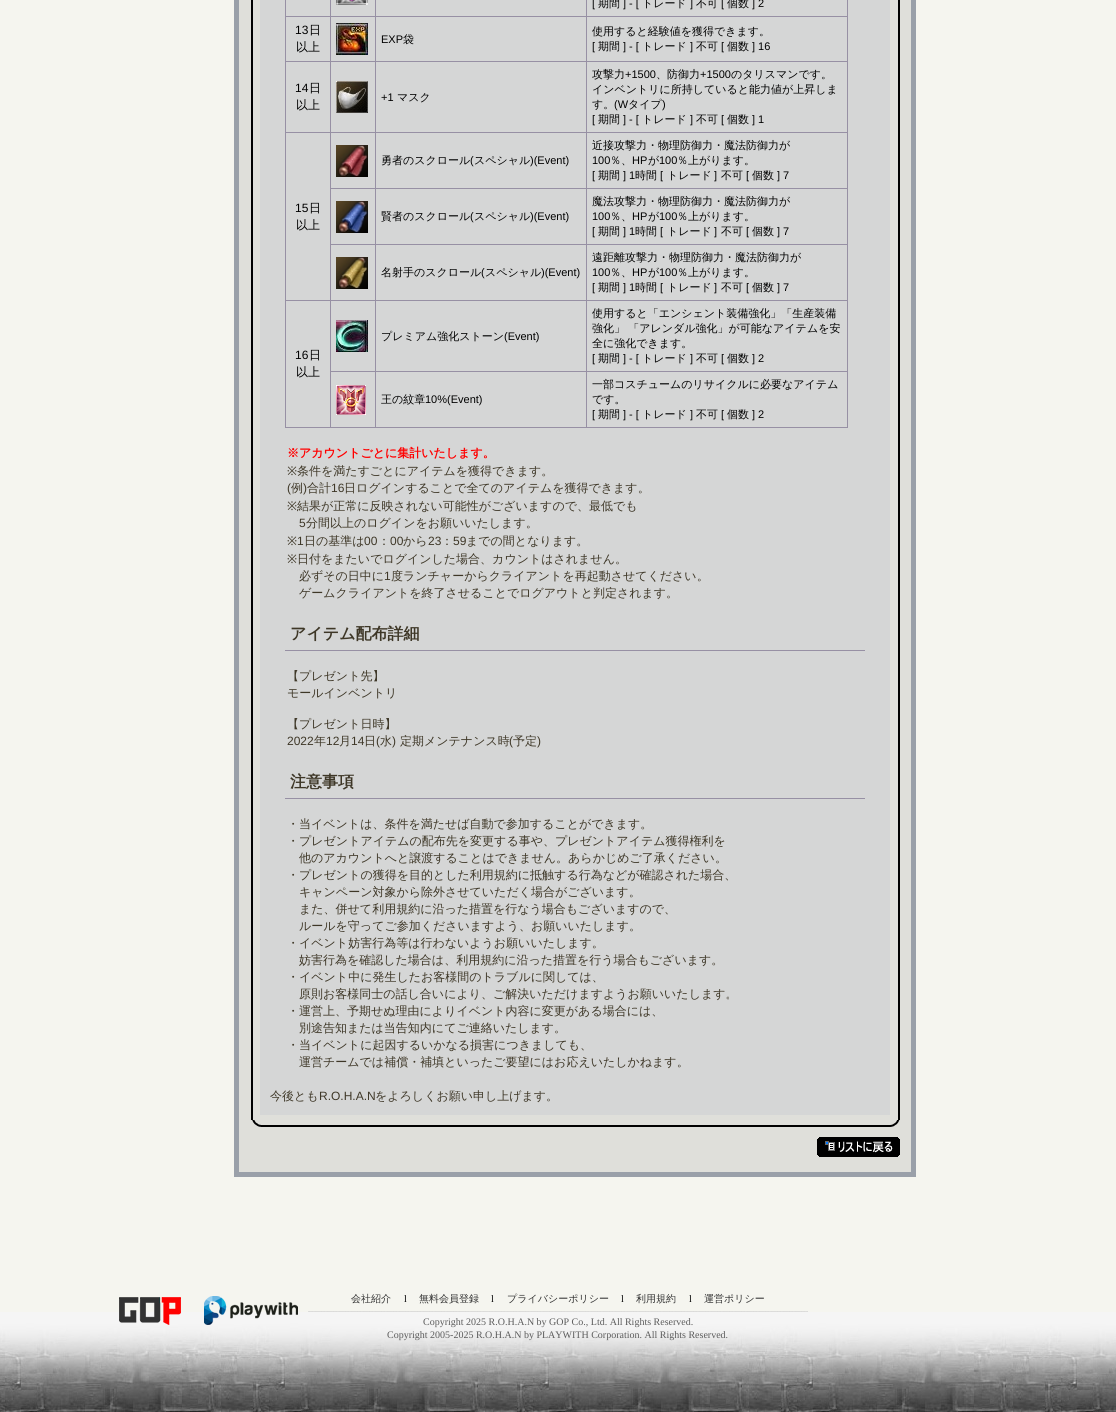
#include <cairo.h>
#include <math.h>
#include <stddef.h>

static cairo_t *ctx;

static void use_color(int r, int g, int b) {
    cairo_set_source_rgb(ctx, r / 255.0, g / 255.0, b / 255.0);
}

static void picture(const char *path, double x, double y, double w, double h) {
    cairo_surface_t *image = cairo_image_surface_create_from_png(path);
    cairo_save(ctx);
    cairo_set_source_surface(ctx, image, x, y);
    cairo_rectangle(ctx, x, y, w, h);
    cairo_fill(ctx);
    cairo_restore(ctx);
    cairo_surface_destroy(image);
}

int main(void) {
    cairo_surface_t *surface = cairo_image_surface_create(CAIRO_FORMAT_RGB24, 1116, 1412);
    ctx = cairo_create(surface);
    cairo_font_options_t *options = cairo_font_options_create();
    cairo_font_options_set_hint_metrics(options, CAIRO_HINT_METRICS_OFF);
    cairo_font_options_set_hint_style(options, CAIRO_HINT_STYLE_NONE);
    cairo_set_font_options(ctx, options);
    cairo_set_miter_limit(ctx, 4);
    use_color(245, 245, 239);
    cairo_paint(ctx);
    use_color(154, 160, 169);
    cairo_rectangle(ctx, 234, 0, 5, 1172);
    cairo_fill(ctx);
    use_color(223, 223, 218);
    cairo_rectangle(ctx, 239, 0, 672, 1172);
    cairo_fill(ctx);
    use_color(0, 0, 0);
    cairo_rectangle(ctx, 251, 0, 2, 1120);
    cairo_fill(ctx);
    use_color(213, 214, 214);
    cairo_rectangle(ctx, 260, 0, 630, 1115);
    cairo_fill(ctx);
    use_color(151, 144, 164);
    cairo_rectangle(ctx, 847, 0, 1, 428);
    cairo_fill(ctx);
    cairo_rectangle(ctx, 285, 427, 563, 1);
    cairo_fill(ctx);
    cairo_rectangle(ctx, 285, 0, 1, 428);
    cairo_fill(ctx);
    cairo_rectangle(ctx, 586, 16, 262, 1);
    cairo_fill(ctx);
    cairo_rectangle(ctx, 586, 61, 262, 1);
    cairo_fill(ctx);
    cairo_rectangle(ctx, 586, 132, 262, 1);
    cairo_fill(ctx);
    cairo_rectangle(ctx, 586, 188, 262, 1);
    cairo_fill(ctx);
    cairo_rectangle(ctx, 586, 244, 262, 1);
    cairo_fill(ctx);
    cairo_rectangle(ctx, 586, 300, 262, 1);
    cairo_fill(ctx);
    cairo_rectangle(ctx, 586, 371, 262, 1);
    cairo_fill(ctx);
    cairo_rectangle(ctx, 586, 371, 1, 57);
    cairo_fill(ctx);
    cairo_rectangle(ctx, 375, 371, 212, 1);
    cairo_fill(ctx);
    cairo_rectangle(ctx, 586, 300, 1, 72);
    cairo_fill(ctx);
    cairo_rectangle(ctx, 375, 300, 212, 1);
    cairo_fill(ctx);
    cairo_rectangle(ctx, 586, 244, 1, 57);
    cairo_fill(ctx);
    cairo_rectangle(ctx, 375, 244, 212, 1);
    cairo_fill(ctx);
    cairo_rectangle(ctx, 586, 188, 1, 57);
    cairo_fill(ctx);
    cairo_rectangle(ctx, 375, 188, 212, 1);
    cairo_fill(ctx);
    cairo_rectangle(ctx, 586, 132, 1, 57);
    cairo_fill(ctx);
    cairo_rectangle(ctx, 375, 132, 212, 1);
    cairo_fill(ctx);
    cairo_rectangle(ctx, 586, 61, 1, 72);
    cairo_fill(ctx);
    cairo_rectangle(ctx, 375, 61, 212, 1);
    cairo_fill(ctx);
    cairo_rectangle(ctx, 586, 16, 1, 46);
    cairo_fill(ctx);
    cairo_rectangle(ctx, 375, 16, 212, 1);
    cairo_fill(ctx);
    cairo_rectangle(ctx, 375, 371, 1, 57);
    cairo_fill(ctx);
    cairo_rectangle(ctx, 330, 371, 46, 1);
    cairo_fill(ctx);
    cairo_rectangle(ctx, 375, 300, 1, 72);
    cairo_fill(ctx);
    cairo_rectangle(ctx, 330, 300, 46, 1);
    cairo_fill(ctx);
    cairo_rectangle(ctx, 375, 244, 1, 57);
    cairo_fill(ctx);
    cairo_rectangle(ctx, 330, 244, 46, 1);
    cairo_fill(ctx);
    cairo_rectangle(ctx, 375, 188, 1, 57);
    cairo_fill(ctx);
    cairo_rectangle(ctx, 330, 188, 46, 1);
    cairo_fill(ctx);
    cairo_rectangle(ctx, 375, 132, 1, 57);
    cairo_fill(ctx);
    cairo_rectangle(ctx, 330, 132, 46, 1);
    cairo_fill(ctx);
    cairo_rectangle(ctx, 375, 61, 1, 72);
    cairo_fill(ctx);
    cairo_rectangle(ctx, 330, 61, 46, 1);
    cairo_fill(ctx);
    cairo_rectangle(ctx, 375, 16, 1, 46);
    cairo_fill(ctx);
    cairo_rectangle(ctx, 330, 16, 46, 1);
    cairo_fill(ctx);
    cairo_rectangle(ctx, 330, 371, 1, 57);
    cairo_fill(ctx);
    cairo_rectangle(ctx, 330, 300, 1, 72);
    cairo_fill(ctx);
    cairo_rectangle(ctx, 285, 300, 46, 1);
    cairo_fill(ctx);
    cairo_rectangle(ctx, 330, 244, 1, 57);
    cairo_fill(ctx);
    cairo_rectangle(ctx, 330, 188, 1, 57);
    cairo_fill(ctx);
    cairo_rectangle(ctx, 330, 132, 1, 57);
    cairo_fill(ctx);
    cairo_rectangle(ctx, 285, 132, 46, 1);
    cairo_fill(ctx);
    cairo_rectangle(ctx, 330, 61, 1, 72);
    cairo_fill(ctx);
    cairo_rectangle(ctx, 285, 61, 46, 1);
    cairo_fill(ctx);
    cairo_rectangle(ctx, 330, 16, 1, 46);
    cairo_fill(ctx);
    cairo_rectangle(ctx, 285, 16, 46, 1);
    cairo_fill(ctx);
    cairo_rectangle(ctx, 330, 0, 1, 17);
    cairo_fill(ctx);
    picture("img1.png", 336, 0, 32, 5);
    cairo_rectangle(ctx, 375, 0, 1, 17);
    cairo_fill(ctx);
    cairo_rectangle(ctx, 586, 0, 1, 17);
    cairo_fill(ctx);
    cairo_select_font_face(ctx, "Liberation Sans", CAIRO_FONT_SLANT_NORMAL, CAIRO_FONT_WEIGHT_NORMAL);
    cairo_set_font_size(ctx, 11);
    use_color(0, 0, 0);
    cairo_move_to(ctx, 592, 7);
    cairo_show_text(ctx, "[");
    cairo_select_font_face(ctx, "WenQuanYi Zen Hei Medium", CAIRO_FONT_SLANT_NORMAL, CAIRO_FONT_WEIGHT_NORMAL);
    cairo_move_to(ctx, 598, 7);
    cairo_show_text(ctx, "期間");
    cairo_select_font_face(ctx, "Liberation Sans", CAIRO_FONT_SLANT_NORMAL, CAIRO_FONT_WEIGHT_NORMAL);
    cairo_move_to(ctx, 623, 7);
    cairo_show_text(ctx, "] - [");
    cairo_select_font_face(ctx, "WenQuanYi Zen Hei Medium", CAIRO_FONT_SLANT_NORMAL, CAIRO_FONT_WEIGHT_NORMAL);
    cairo_move_to(ctx, 642, 7);
    cairo_show_text(ctx, "トレード");
    cairo_select_font_face(ctx, "Liberation Sans", CAIRO_FONT_SLANT_NORMAL, CAIRO_FONT_WEIGHT_NORMAL);
    cairo_move_to(ctx, 690, 7);
    cairo_show_text(ctx, "]");
    cairo_select_font_face(ctx, "WenQuanYi Zen Hei Medium", CAIRO_FONT_SLANT_NORMAL, CAIRO_FONT_WEIGHT_NORMAL);
    cairo_move_to(ctx, 696, 7);
    cairo_show_text(ctx, "不可");
    cairo_select_font_face(ctx, "Liberation Sans", CAIRO_FONT_SLANT_NORMAL, CAIRO_FONT_WEIGHT_NORMAL);
    cairo_move_to(ctx, 721, 7);
    cairo_show_text(ctx, "[");
    cairo_select_font_face(ctx, "WenQuanYi Zen Hei Medium", CAIRO_FONT_SLANT_NORMAL, CAIRO_FONT_WEIGHT_NORMAL);
    cairo_move_to(ctx, 727, 7);
    cairo_show_text(ctx, "個数");
    cairo_select_font_face(ctx, "Liberation Sans", CAIRO_FONT_SLANT_NORMAL, CAIRO_FONT_WEIGHT_NORMAL);
    cairo_move_to(ctx, 752, 7);
    cairo_show_text(ctx, "] 2");
    cairo_set_font_size(ctx, 12);
    cairo_move_to(ctx, 295, 34);
    cairo_show_text(ctx, "13");
    cairo_select_font_face(ctx, "WenQuanYi Zen Hei Medium", CAIRO_FONT_SLANT_NORMAL, CAIRO_FONT_WEIGHT_NORMAL);
    cairo_move_to(ctx, 309, 34);
    cairo_show_text(ctx, "日");
    cairo_move_to(ctx, 296, 51);
    cairo_show_text(ctx, "以上");
    picture("img2.png", 336, 23, 32, 32);
    cairo_select_font_face(ctx, "Liberation Sans", CAIRO_FONT_SLANT_NORMAL, CAIRO_FONT_WEIGHT_NORMAL);
    cairo_set_font_size(ctx, 11);
    cairo_move_to(ctx, 381, 43);
    cairo_show_text(ctx, "EXP");
    cairo_select_font_face(ctx, "WenQuanYi Zen Hei Medium", CAIRO_FONT_SLANT_NORMAL, CAIRO_FONT_WEIGHT_NORMAL);
    cairo_move_to(ctx, 403, 43);
    cairo_show_text(ctx, "袋");
    cairo_move_to(ctx, 592, 35);
    cairo_show_text(ctx, "使用すると経験値を獲得できます。");
    cairo_select_font_face(ctx, "Liberation Sans", CAIRO_FONT_SLANT_NORMAL, CAIRO_FONT_WEIGHT_NORMAL);
    cairo_move_to(ctx, 592, 50);
    cairo_show_text(ctx, "[");
    cairo_select_font_face(ctx, "WenQuanYi Zen Hei Medium", CAIRO_FONT_SLANT_NORMAL, CAIRO_FONT_WEIGHT_NORMAL);
    cairo_move_to(ctx, 598, 50);
    cairo_show_text(ctx, "期間");
    cairo_select_font_face(ctx, "Liberation Sans", CAIRO_FONT_SLANT_NORMAL, CAIRO_FONT_WEIGHT_NORMAL);
    cairo_move_to(ctx, 623, 50);
    cairo_show_text(ctx, "] - [");
    cairo_select_font_face(ctx, "WenQuanYi Zen Hei Medium", CAIRO_FONT_SLANT_NORMAL, CAIRO_FONT_WEIGHT_NORMAL);
    cairo_move_to(ctx, 642, 50);
    cairo_show_text(ctx, "トレード");
    cairo_select_font_face(ctx, "Liberation Sans", CAIRO_FONT_SLANT_NORMAL, CAIRO_FONT_WEIGHT_NORMAL);
    cairo_move_to(ctx, 690, 50);
    cairo_show_text(ctx, "]");
    cairo_select_font_face(ctx, "WenQuanYi Zen Hei Medium", CAIRO_FONT_SLANT_NORMAL, CAIRO_FONT_WEIGHT_NORMAL);
    cairo_move_to(ctx, 696, 50);
    cairo_show_text(ctx, "不可");
    cairo_select_font_face(ctx, "Liberation Sans", CAIRO_FONT_SLANT_NORMAL, CAIRO_FONT_WEIGHT_NORMAL);
    cairo_move_to(ctx, 721, 50);
    cairo_show_text(ctx, "[");
    cairo_select_font_face(ctx, "WenQuanYi Zen Hei Medium", CAIRO_FONT_SLANT_NORMAL, CAIRO_FONT_WEIGHT_NORMAL);
    cairo_move_to(ctx, 727, 50);
    cairo_show_text(ctx, "個数");
    cairo_select_font_face(ctx, "Liberation Sans", CAIRO_FONT_SLANT_NORMAL, CAIRO_FONT_WEIGHT_NORMAL);
    cairo_move_to(ctx, 752, 50);
    cairo_show_text(ctx, "] 16");
    cairo_set_font_size(ctx, 12);
    cairo_move_to(ctx, 295, 92);
    cairo_show_text(ctx, "14");
    cairo_select_font_face(ctx, "WenQuanYi Zen Hei Medium", CAIRO_FONT_SLANT_NORMAL, CAIRO_FONT_WEIGHT_NORMAL);
    cairo_move_to(ctx, 309, 92);
    cairo_show_text(ctx, "日");
    cairo_move_to(ctx, 296, 109);
    cairo_show_text(ctx, "以上");
    picture("img3.png", 336, 81, 32, 32);
    cairo_select_font_face(ctx, "Liberation Sans", CAIRO_FONT_SLANT_NORMAL, CAIRO_FONT_WEIGHT_NORMAL);
    cairo_set_font_size(ctx, 11);
    cairo_move_to(ctx, 381, 101);
    cairo_show_text(ctx, "+1");
    cairo_select_font_face(ctx, "WenQuanYi Zen Hei Medium", CAIRO_FONT_SLANT_NORMAL, CAIRO_FONT_WEIGHT_NORMAL);
    cairo_move_to(ctx, 397, 101);
    cairo_show_text(ctx, "マスク");
    cairo_move_to(ctx, 592, 78);
    cairo_show_text(ctx, "攻撃力");
    cairo_select_font_face(ctx, "Liberation Sans", CAIRO_FONT_SLANT_NORMAL, CAIRO_FONT_WEIGHT_NORMAL);
    cairo_move_to(ctx, 625, 78);
    cairo_show_text(ctx, "+1500");
    cairo_select_font_face(ctx, "WenQuanYi Zen Hei Medium", CAIRO_FONT_SLANT_NORMAL, CAIRO_FONT_WEIGHT_NORMAL);
    cairo_move_to(ctx, 656, 78);
    cairo_show_text(ctx, "、防御力");
    cairo_select_font_face(ctx, "Liberation Sans", CAIRO_FONT_SLANT_NORMAL, CAIRO_FONT_WEIGHT_NORMAL);
    cairo_move_to(ctx, 700, 78);
    cairo_show_text(ctx, "+1500");
    cairo_select_font_face(ctx, "WenQuanYi Zen Hei Medium", CAIRO_FONT_SLANT_NORMAL, CAIRO_FONT_WEIGHT_NORMAL);
    cairo_move_to(ctx, 731, 78);
    cairo_show_text(ctx, "のタリスマンです。");
    cairo_move_to(ctx, 592, 93);
    cairo_show_text(ctx, "インベントリに所持していると能力値が上昇しま");
    cairo_move_to(ctx, 592, 108);
    cairo_show_text(ctx, "す。");
    cairo_select_font_face(ctx, "Liberation Sans", CAIRO_FONT_SLANT_NORMAL, CAIRO_FONT_WEIGHT_NORMAL);
    cairo_move_to(ctx, 614, 108);
    cairo_show_text(ctx, "(W");
    cairo_select_font_face(ctx, "WenQuanYi Zen Hei Medium", CAIRO_FONT_SLANT_NORMAL, CAIRO_FONT_WEIGHT_NORMAL);
    cairo_move_to(ctx, 628, 108);
    cairo_show_text(ctx, "タイプ");
    cairo_select_font_face(ctx, "Liberation Sans", CAIRO_FONT_SLANT_NORMAL, CAIRO_FONT_WEIGHT_NORMAL);
    cairo_move_to(ctx, 662, 108);
    cairo_show_text(ctx, ")");
    cairo_move_to(ctx, 592, 123);
    cairo_show_text(ctx, "[");
    cairo_select_font_face(ctx, "WenQuanYi Zen Hei Medium", CAIRO_FONT_SLANT_NORMAL, CAIRO_FONT_WEIGHT_NORMAL);
    cairo_move_to(ctx, 598, 123);
    cairo_show_text(ctx, "期間");
    cairo_select_font_face(ctx, "Liberation Sans", CAIRO_FONT_SLANT_NORMAL, CAIRO_FONT_WEIGHT_NORMAL);
    cairo_move_to(ctx, 623, 123);
    cairo_show_text(ctx, "] - [");
    cairo_select_font_face(ctx, "WenQuanYi Zen Hei Medium", CAIRO_FONT_SLANT_NORMAL, CAIRO_FONT_WEIGHT_NORMAL);
    cairo_move_to(ctx, 642, 123);
    cairo_show_text(ctx, "トレード");
    cairo_select_font_face(ctx, "Liberation Sans", CAIRO_FONT_SLANT_NORMAL, CAIRO_FONT_WEIGHT_NORMAL);
    cairo_move_to(ctx, 690, 123);
    cairo_show_text(ctx, "]");
    cairo_select_font_face(ctx, "WenQuanYi Zen Hei Medium", CAIRO_FONT_SLANT_NORMAL, CAIRO_FONT_WEIGHT_NORMAL);
    cairo_move_to(ctx, 696, 123);
    cairo_show_text(ctx, "不可");
    cairo_select_font_face(ctx, "Liberation Sans", CAIRO_FONT_SLANT_NORMAL, CAIRO_FONT_WEIGHT_NORMAL);
    cairo_move_to(ctx, 721, 123);
    cairo_show_text(ctx, "[");
    cairo_select_font_face(ctx, "WenQuanYi Zen Hei Medium", CAIRO_FONT_SLANT_NORMAL, CAIRO_FONT_WEIGHT_NORMAL);
    cairo_move_to(ctx, 727, 123);
    cairo_show_text(ctx, "個数");
    cairo_select_font_face(ctx, "Liberation Sans", CAIRO_FONT_SLANT_NORMAL, CAIRO_FONT_WEIGHT_NORMAL);
    cairo_move_to(ctx, 752, 123);
    cairo_show_text(ctx, "] 1");
    picture("img4.png", 336, 145, 32, 32);
    cairo_select_font_face(ctx, "WenQuanYi Zen Hei Medium", CAIRO_FONT_SLANT_NORMAL, CAIRO_FONT_WEIGHT_NORMAL);
    cairo_move_to(ctx, 381, 164);
    cairo_show_text(ctx, "勇者のスクロール");
    cairo_select_font_face(ctx, "Liberation Sans", CAIRO_FONT_SLANT_NORMAL, CAIRO_FONT_WEIGHT_NORMAL);
    cairo_move_to(ctx, 470, 164);
    cairo_show_text(ctx, "(");
    cairo_select_font_face(ctx, "WenQuanYi Zen Hei Medium", CAIRO_FONT_SLANT_NORMAL, CAIRO_FONT_WEIGHT_NORMAL);
    cairo_move_to(ctx, 474, 164);
    cairo_show_text(ctx, "スペシャル");
    cairo_select_font_face(ctx, "Liberation Sans", CAIRO_FONT_SLANT_NORMAL, CAIRO_FONT_WEIGHT_NORMAL);
    cairo_move_to(ctx, 530, 164);
    cairo_show_text(ctx, ")(Event)");
    cairo_select_font_face(ctx, "WenQuanYi Zen Hei Medium", CAIRO_FONT_SLANT_NORMAL, CAIRO_FONT_WEIGHT_NORMAL);
    cairo_move_to(ctx, 592, 149);
    cairo_show_text(ctx, "近接攻撃力・物理防御力・魔法防御力が");
    cairo_select_font_face(ctx, "Liberation Sans", CAIRO_FONT_SLANT_NORMAL, CAIRO_FONT_WEIGHT_NORMAL);
    cairo_move_to(ctx, 592, 164);
    cairo_show_text(ctx, "100");
    cairo_select_font_face(ctx, "WenQuanYi Zen Hei Medium", CAIRO_FONT_SLANT_NORMAL, CAIRO_FONT_WEIGHT_NORMAL);
    cairo_move_to(ctx, 610, 164);
    cairo_show_text(ctx, "％、");
    cairo_select_font_face(ctx, "Liberation Sans", CAIRO_FONT_SLANT_NORMAL, CAIRO_FONT_WEIGHT_NORMAL);
    cairo_move_to(ctx, 632, 164);
    cairo_show_text(ctx, "HP");
    cairo_select_font_face(ctx, "WenQuanYi Zen Hei Medium", CAIRO_FONT_SLANT_NORMAL, CAIRO_FONT_WEIGHT_NORMAL);
    cairo_move_to(ctx, 648, 164);
    cairo_show_text(ctx, "が");
    cairo_select_font_face(ctx, "Liberation Sans", CAIRO_FONT_SLANT_NORMAL, CAIRO_FONT_WEIGHT_NORMAL);
    cairo_move_to(ctx, 659, 164);
    cairo_show_text(ctx, "100");
    cairo_select_font_face(ctx, "WenQuanYi Zen Hei Medium", CAIRO_FONT_SLANT_NORMAL, CAIRO_FONT_WEIGHT_NORMAL);
    cairo_move_to(ctx, 677, 164);
    cairo_show_text(ctx, "％上がります。");
    cairo_select_font_face(ctx, "Liberation Sans", CAIRO_FONT_SLANT_NORMAL, CAIRO_FONT_WEIGHT_NORMAL);
    cairo_move_to(ctx, 592, 179);
    cairo_show_text(ctx, "[");
    cairo_select_font_face(ctx, "WenQuanYi Zen Hei Medium", CAIRO_FONT_SLANT_NORMAL, CAIRO_FONT_WEIGHT_NORMAL);
    cairo_move_to(ctx, 598, 179);
    cairo_show_text(ctx, "期間");
    cairo_select_font_face(ctx, "Liberation Sans", CAIRO_FONT_SLANT_NORMAL, CAIRO_FONT_WEIGHT_NORMAL);
    cairo_move_to(ctx, 623, 179);
    cairo_show_text(ctx, "] 1");
    cairo_select_font_face(ctx, "WenQuanYi Zen Hei Medium", CAIRO_FONT_SLANT_NORMAL, CAIRO_FONT_WEIGHT_NORMAL);
    cairo_move_to(ctx, 635, 179);
    cairo_show_text(ctx, "時間");
    cairo_select_font_face(ctx, "Liberation Sans", CAIRO_FONT_SLANT_NORMAL, CAIRO_FONT_WEIGHT_NORMAL);
    cairo_move_to(ctx, 660, 179);
    cairo_show_text(ctx, "[");
    cairo_select_font_face(ctx, "WenQuanYi Zen Hei Medium", CAIRO_FONT_SLANT_NORMAL, CAIRO_FONT_WEIGHT_NORMAL);
    cairo_move_to(ctx, 667, 179);
    cairo_show_text(ctx, "トレード");
    cairo_select_font_face(ctx, "Liberation Sans", CAIRO_FONT_SLANT_NORMAL, CAIRO_FONT_WEIGHT_NORMAL);
    cairo_move_to(ctx, 714, 179);
    cairo_show_text(ctx, "]");
    cairo_select_font_face(ctx, "WenQuanYi Zen Hei Medium", CAIRO_FONT_SLANT_NORMAL, CAIRO_FONT_WEIGHT_NORMAL);
    cairo_move_to(ctx, 721, 179);
    cairo_show_text(ctx, "不可");
    cairo_select_font_face(ctx, "Liberation Sans", CAIRO_FONT_SLANT_NORMAL, CAIRO_FONT_WEIGHT_NORMAL);
    cairo_move_to(ctx, 746, 179);
    cairo_show_text(ctx, "[");
    cairo_select_font_face(ctx, "WenQuanYi Zen Hei Medium", CAIRO_FONT_SLANT_NORMAL, CAIRO_FONT_WEIGHT_NORMAL);
    cairo_move_to(ctx, 752, 179);
    cairo_show_text(ctx, "個数");
    cairo_select_font_face(ctx, "Liberation Sans", CAIRO_FONT_SLANT_NORMAL, CAIRO_FONT_WEIGHT_NORMAL);
    cairo_move_to(ctx, 777, 179);
    cairo_show_text(ctx, "] 7");
    cairo_set_font_size(ctx, 12);
    cairo_move_to(ctx, 295, 212);
    cairo_show_text(ctx, "15");
    cairo_select_font_face(ctx, "WenQuanYi Zen Hei Medium", CAIRO_FONT_SLANT_NORMAL, CAIRO_FONT_WEIGHT_NORMAL);
    cairo_move_to(ctx, 309, 212);
    cairo_show_text(ctx, "日");
    cairo_move_to(ctx, 296, 229);
    cairo_show_text(ctx, "以上");
    picture("img5.png", 336, 201, 32, 32);
    cairo_set_font_size(ctx, 11);
    cairo_move_to(ctx, 381, 220);
    cairo_show_text(ctx, "賢者のスクロール");
    cairo_select_font_face(ctx, "Liberation Sans", CAIRO_FONT_SLANT_NORMAL, CAIRO_FONT_WEIGHT_NORMAL);
    cairo_move_to(ctx, 470, 220);
    cairo_show_text(ctx, "(");
    cairo_select_font_face(ctx, "WenQuanYi Zen Hei Medium", CAIRO_FONT_SLANT_NORMAL, CAIRO_FONT_WEIGHT_NORMAL);
    cairo_move_to(ctx, 474, 220);
    cairo_show_text(ctx, "スペシャル");
    cairo_select_font_face(ctx, "Liberation Sans", CAIRO_FONT_SLANT_NORMAL, CAIRO_FONT_WEIGHT_NORMAL);
    cairo_move_to(ctx, 530, 220);
    cairo_show_text(ctx, ")(Event)");
    cairo_select_font_face(ctx, "WenQuanYi Zen Hei Medium", CAIRO_FONT_SLANT_NORMAL, CAIRO_FONT_WEIGHT_NORMAL);
    cairo_move_to(ctx, 592, 205);
    cairo_show_text(ctx, "魔法攻撃力・物理防御力・魔法防御力が");
    cairo_select_font_face(ctx, "Liberation Sans", CAIRO_FONT_SLANT_NORMAL, CAIRO_FONT_WEIGHT_NORMAL);
    cairo_move_to(ctx, 592, 220);
    cairo_show_text(ctx, "100");
    cairo_select_font_face(ctx, "WenQuanYi Zen Hei Medium", CAIRO_FONT_SLANT_NORMAL, CAIRO_FONT_WEIGHT_NORMAL);
    cairo_move_to(ctx, 610, 220);
    cairo_show_text(ctx, "％、");
    cairo_select_font_face(ctx, "Liberation Sans", CAIRO_FONT_SLANT_NORMAL, CAIRO_FONT_WEIGHT_NORMAL);
    cairo_move_to(ctx, 632, 220);
    cairo_show_text(ctx, "HP");
    cairo_select_font_face(ctx, "WenQuanYi Zen Hei Medium", CAIRO_FONT_SLANT_NORMAL, CAIRO_FONT_WEIGHT_NORMAL);
    cairo_move_to(ctx, 648, 220);
    cairo_show_text(ctx, "が");
    cairo_select_font_face(ctx, "Liberation Sans", CAIRO_FONT_SLANT_NORMAL, CAIRO_FONT_WEIGHT_NORMAL);
    cairo_move_to(ctx, 659, 220);
    cairo_show_text(ctx, "100");
    cairo_select_font_face(ctx, "WenQuanYi Zen Hei Medium", CAIRO_FONT_SLANT_NORMAL, CAIRO_FONT_WEIGHT_NORMAL);
    cairo_move_to(ctx, 677, 220);
    cairo_show_text(ctx, "％上がります。");
    cairo_select_font_face(ctx, "Liberation Sans", CAIRO_FONT_SLANT_NORMAL, CAIRO_FONT_WEIGHT_NORMAL);
    cairo_move_to(ctx, 592, 235);
    cairo_show_text(ctx, "[");
    cairo_select_font_face(ctx, "WenQuanYi Zen Hei Medium", CAIRO_FONT_SLANT_NORMAL, CAIRO_FONT_WEIGHT_NORMAL);
    cairo_move_to(ctx, 598, 235);
    cairo_show_text(ctx, "期間");
    cairo_select_font_face(ctx, "Liberation Sans", CAIRO_FONT_SLANT_NORMAL, CAIRO_FONT_WEIGHT_NORMAL);
    cairo_move_to(ctx, 623, 235);
    cairo_show_text(ctx, "] 1");
    cairo_select_font_face(ctx, "WenQuanYi Zen Hei Medium", CAIRO_FONT_SLANT_NORMAL, CAIRO_FONT_WEIGHT_NORMAL);
    cairo_move_to(ctx, 635, 235);
    cairo_show_text(ctx, "時間");
    cairo_select_font_face(ctx, "Liberation Sans", CAIRO_FONT_SLANT_NORMAL, CAIRO_FONT_WEIGHT_NORMAL);
    cairo_move_to(ctx, 660, 235);
    cairo_show_text(ctx, "[");
    cairo_select_font_face(ctx, "WenQuanYi Zen Hei Medium", CAIRO_FONT_SLANT_NORMAL, CAIRO_FONT_WEIGHT_NORMAL);
    cairo_move_to(ctx, 667, 235);
    cairo_show_text(ctx, "トレード");
    cairo_select_font_face(ctx, "Liberation Sans", CAIRO_FONT_SLANT_NORMAL, CAIRO_FONT_WEIGHT_NORMAL);
    cairo_move_to(ctx, 714, 235);
    cairo_show_text(ctx, "]");
    cairo_select_font_face(ctx, "WenQuanYi Zen Hei Medium", CAIRO_FONT_SLANT_NORMAL, CAIRO_FONT_WEIGHT_NORMAL);
    cairo_move_to(ctx, 721, 235);
    cairo_show_text(ctx, "不可");
    cairo_select_font_face(ctx, "Liberation Sans", CAIRO_FONT_SLANT_NORMAL, CAIRO_FONT_WEIGHT_NORMAL);
    cairo_move_to(ctx, 746, 235);
    cairo_show_text(ctx, "[");
    cairo_select_font_face(ctx, "WenQuanYi Zen Hei Medium", CAIRO_FONT_SLANT_NORMAL, CAIRO_FONT_WEIGHT_NORMAL);
    cairo_move_to(ctx, 752, 235);
    cairo_show_text(ctx, "個数");
    cairo_select_font_face(ctx, "Liberation Sans", CAIRO_FONT_SLANT_NORMAL, CAIRO_FONT_WEIGHT_NORMAL);
    cairo_move_to(ctx, 777, 235);
    cairo_show_text(ctx, "] 7");
    picture("img6.png", 336, 257, 32, 32);
    cairo_select_font_face(ctx, "WenQuanYi Zen Hei Medium", CAIRO_FONT_SLANT_NORMAL, CAIRO_FONT_WEIGHT_NORMAL);
    cairo_move_to(ctx, 381, 276);
    cairo_show_text(ctx, "名射手のスクロール");
    cairo_select_font_face(ctx, "Liberation Sans", CAIRO_FONT_SLANT_NORMAL, CAIRO_FONT_WEIGHT_NORMAL);
    cairo_move_to(ctx, 481, 276);
    cairo_show_text(ctx, "(");
    cairo_select_font_face(ctx, "WenQuanYi Zen Hei Medium", CAIRO_FONT_SLANT_NORMAL, CAIRO_FONT_WEIGHT_NORMAL);
    cairo_move_to(ctx, 485, 276);
    cairo_show_text(ctx, "スペシャル");
    cairo_select_font_face(ctx, "Liberation Sans", CAIRO_FONT_SLANT_NORMAL, CAIRO_FONT_WEIGHT_NORMAL);
    cairo_move_to(ctx, 541, 276);
    cairo_show_text(ctx, ")(Event)");
    cairo_select_font_face(ctx, "WenQuanYi Zen Hei Medium", CAIRO_FONT_SLANT_NORMAL, CAIRO_FONT_WEIGHT_NORMAL);
    cairo_move_to(ctx, 592, 261);
    cairo_show_text(ctx, "遠距離攻撃力・物理防御力・魔法防御力が");
    cairo_select_font_face(ctx, "Liberation Sans", CAIRO_FONT_SLANT_NORMAL, CAIRO_FONT_WEIGHT_NORMAL);
    cairo_move_to(ctx, 592, 276);
    cairo_show_text(ctx, "100");
    cairo_select_font_face(ctx, "WenQuanYi Zen Hei Medium", CAIRO_FONT_SLANT_NORMAL, CAIRO_FONT_WEIGHT_NORMAL);
    cairo_move_to(ctx, 610, 276);
    cairo_show_text(ctx, "％、");
    cairo_select_font_face(ctx, "Liberation Sans", CAIRO_FONT_SLANT_NORMAL, CAIRO_FONT_WEIGHT_NORMAL);
    cairo_move_to(ctx, 632, 276);
    cairo_show_text(ctx, "HP");
    cairo_select_font_face(ctx, "WenQuanYi Zen Hei Medium", CAIRO_FONT_SLANT_NORMAL, CAIRO_FONT_WEIGHT_NORMAL);
    cairo_move_to(ctx, 648, 276);
    cairo_show_text(ctx, "が");
    cairo_select_font_face(ctx, "Liberation Sans", CAIRO_FONT_SLANT_NORMAL, CAIRO_FONT_WEIGHT_NORMAL);
    cairo_move_to(ctx, 659, 276);
    cairo_show_text(ctx, "100");
    cairo_select_font_face(ctx, "WenQuanYi Zen Hei Medium", CAIRO_FONT_SLANT_NORMAL, CAIRO_FONT_WEIGHT_NORMAL);
    cairo_move_to(ctx, 677, 276);
    cairo_show_text(ctx, "％上がります。");
    cairo_select_font_face(ctx, "Liberation Sans", CAIRO_FONT_SLANT_NORMAL, CAIRO_FONT_WEIGHT_NORMAL);
    cairo_move_to(ctx, 592, 291);
    cairo_show_text(ctx, "[");
    cairo_select_font_face(ctx, "WenQuanYi Zen Hei Medium", CAIRO_FONT_SLANT_NORMAL, CAIRO_FONT_WEIGHT_NORMAL);
    cairo_move_to(ctx, 598, 291);
    cairo_show_text(ctx, "期間");
    cairo_select_font_face(ctx, "Liberation Sans", CAIRO_FONT_SLANT_NORMAL, CAIRO_FONT_WEIGHT_NORMAL);
    cairo_move_to(ctx, 623, 291);
    cairo_show_text(ctx, "] 1");
    cairo_select_font_face(ctx, "WenQuanYi Zen Hei Medium", CAIRO_FONT_SLANT_NORMAL, CAIRO_FONT_WEIGHT_NORMAL);
    cairo_move_to(ctx, 635, 291);
    cairo_show_text(ctx, "時間");
    cairo_select_font_face(ctx, "Liberation Sans", CAIRO_FONT_SLANT_NORMAL, CAIRO_FONT_WEIGHT_NORMAL);
    cairo_move_to(ctx, 660, 291);
    cairo_show_text(ctx, "[");
    cairo_select_font_face(ctx, "WenQuanYi Zen Hei Medium", CAIRO_FONT_SLANT_NORMAL, CAIRO_FONT_WEIGHT_NORMAL);
    cairo_move_to(ctx, 667, 291);
    cairo_show_text(ctx, "トレード");
    cairo_select_font_face(ctx, "Liberation Sans", CAIRO_FONT_SLANT_NORMAL, CAIRO_FONT_WEIGHT_NORMAL);
    cairo_move_to(ctx, 714, 291);
    cairo_show_text(ctx, "]");
    cairo_select_font_face(ctx, "WenQuanYi Zen Hei Medium", CAIRO_FONT_SLANT_NORMAL, CAIRO_FONT_WEIGHT_NORMAL);
    cairo_move_to(ctx, 721, 291);
    cairo_show_text(ctx, "不可");
    cairo_select_font_face(ctx, "Liberation Sans", CAIRO_FONT_SLANT_NORMAL, CAIRO_FONT_WEIGHT_NORMAL);
    cairo_move_to(ctx, 746, 291);
    cairo_show_text(ctx, "[");
    cairo_select_font_face(ctx, "WenQuanYi Zen Hei Medium", CAIRO_FONT_SLANT_NORMAL, CAIRO_FONT_WEIGHT_NORMAL);
    cairo_move_to(ctx, 752, 291);
    cairo_show_text(ctx, "個数");
    cairo_select_font_face(ctx, "Liberation Sans", CAIRO_FONT_SLANT_NORMAL, CAIRO_FONT_WEIGHT_NORMAL);
    cairo_move_to(ctx, 777, 291);
    cairo_show_text(ctx, "] 7");
    picture("img7.png", 336, 320, 32, 32);
    cairo_select_font_face(ctx, "WenQuanYi Zen Hei Medium", CAIRO_FONT_SLANT_NORMAL, CAIRO_FONT_WEIGHT_NORMAL);
    cairo_move_to(ctx, 381, 340);
    cairo_show_text(ctx, "プレミアム強化ストーン");
    cairo_select_font_face(ctx, "Liberation Sans", CAIRO_FONT_SLANT_NORMAL, CAIRO_FONT_WEIGHT_NORMAL);
    cairo_move_to(ctx, 504, 340);
    cairo_show_text(ctx, "(Event)");
    cairo_select_font_face(ctx, "WenQuanYi Zen Hei Medium", CAIRO_FONT_SLANT_NORMAL, CAIRO_FONT_WEIGHT_NORMAL);
    cairo_move_to(ctx, 592, 317);
    cairo_show_text(ctx, "使用すると「エンシェント装備強化」「生産装備");
    cairo_move_to(ctx, 592, 332);
    cairo_show_text(ctx, "強化」 「アレンダル強化」が可能なアイテムを安");
    cairo_move_to(ctx, 592, 347);
    cairo_show_text(ctx, "全に強化できます。");
    cairo_select_font_face(ctx, "Liberation Sans", CAIRO_FONT_SLANT_NORMAL, CAIRO_FONT_WEIGHT_NORMAL);
    cairo_move_to(ctx, 592, 362);
    cairo_show_text(ctx, "[");
    cairo_select_font_face(ctx, "WenQuanYi Zen Hei Medium", CAIRO_FONT_SLANT_NORMAL, CAIRO_FONT_WEIGHT_NORMAL);
    cairo_move_to(ctx, 598, 362);
    cairo_show_text(ctx, "期間");
    cairo_select_font_face(ctx, "Liberation Sans", CAIRO_FONT_SLANT_NORMAL, CAIRO_FONT_WEIGHT_NORMAL);
    cairo_move_to(ctx, 623, 362);
    cairo_show_text(ctx, "] - [");
    cairo_select_font_face(ctx, "WenQuanYi Zen Hei Medium", CAIRO_FONT_SLANT_NORMAL, CAIRO_FONT_WEIGHT_NORMAL);
    cairo_move_to(ctx, 642, 362);
    cairo_show_text(ctx, "トレード");
    cairo_select_font_face(ctx, "Liberation Sans", CAIRO_FONT_SLANT_NORMAL, CAIRO_FONT_WEIGHT_NORMAL);
    cairo_move_to(ctx, 690, 362);
    cairo_show_text(ctx, "]");
    cairo_select_font_face(ctx, "WenQuanYi Zen Hei Medium", CAIRO_FONT_SLANT_NORMAL, CAIRO_FONT_WEIGHT_NORMAL);
    cairo_move_to(ctx, 696, 362);
    cairo_show_text(ctx, "不可");
    cairo_select_font_face(ctx, "Liberation Sans", CAIRO_FONT_SLANT_NORMAL, CAIRO_FONT_WEIGHT_NORMAL);
    cairo_move_to(ctx, 721, 362);
    cairo_show_text(ctx, "[");
    cairo_select_font_face(ctx, "WenQuanYi Zen Hei Medium", CAIRO_FONT_SLANT_NORMAL, CAIRO_FONT_WEIGHT_NORMAL);
    cairo_move_to(ctx, 727, 362);
    cairo_show_text(ctx, "個数");
    cairo_select_font_face(ctx, "Liberation Sans", CAIRO_FONT_SLANT_NORMAL, CAIRO_FONT_WEIGHT_NORMAL);
    cairo_move_to(ctx, 752, 362);
    cairo_show_text(ctx, "] 2");
    cairo_set_font_size(ctx, 12);
    cairo_move_to(ctx, 295, 359);
    cairo_show_text(ctx, "16");
    cairo_select_font_face(ctx, "WenQuanYi Zen Hei Medium", CAIRO_FONT_SLANT_NORMAL, CAIRO_FONT_WEIGHT_NORMAL);
    cairo_move_to(ctx, 309, 359);
    cairo_show_text(ctx, "日");
    cairo_move_to(ctx, 296, 376);
    cairo_show_text(ctx, "以上");
    picture("img8.png", 336, 385, 30, 30);
    cairo_set_font_size(ctx, 11);
    cairo_move_to(ctx, 381, 403);
    cairo_show_text(ctx, "王の紋章");
    cairo_select_font_face(ctx, "Liberation Sans", CAIRO_FONT_SLANT_NORMAL, CAIRO_FONT_WEIGHT_NORMAL);
    cairo_move_to(ctx, 425, 403);
    cairo_show_text(ctx, "10%(Event)");
    cairo_select_font_face(ctx, "WenQuanYi Zen Hei Medium", CAIRO_FONT_SLANT_NORMAL, CAIRO_FONT_WEIGHT_NORMAL);
    cairo_move_to(ctx, 592, 388);
    cairo_show_text(ctx, "一部コスチュームのリサイクルに必要なアイテム");
    cairo_move_to(ctx, 592, 403);
    cairo_show_text(ctx, "です。");
    cairo_select_font_face(ctx, "Liberation Sans", CAIRO_FONT_SLANT_NORMAL, CAIRO_FONT_WEIGHT_NORMAL);
    cairo_move_to(ctx, 592, 418);
    cairo_show_text(ctx, "[");
    cairo_select_font_face(ctx, "WenQuanYi Zen Hei Medium", CAIRO_FONT_SLANT_NORMAL, CAIRO_FONT_WEIGHT_NORMAL);
    cairo_move_to(ctx, 598, 418);
    cairo_show_text(ctx, "期間");
    cairo_select_font_face(ctx, "Liberation Sans", CAIRO_FONT_SLANT_NORMAL, CAIRO_FONT_WEIGHT_NORMAL);
    cairo_move_to(ctx, 623, 418);
    cairo_show_text(ctx, "] - [");
    cairo_select_font_face(ctx, "WenQuanYi Zen Hei Medium", CAIRO_FONT_SLANT_NORMAL, CAIRO_FONT_WEIGHT_NORMAL);
    cairo_move_to(ctx, 642, 418);
    cairo_show_text(ctx, "トレード");
    cairo_select_font_face(ctx, "Liberation Sans", CAIRO_FONT_SLANT_NORMAL, CAIRO_FONT_WEIGHT_NORMAL);
    cairo_move_to(ctx, 690, 418);
    cairo_show_text(ctx, "]");
    cairo_select_font_face(ctx, "WenQuanYi Zen Hei Medium", CAIRO_FONT_SLANT_NORMAL, CAIRO_FONT_WEIGHT_NORMAL);
    cairo_move_to(ctx, 696, 418);
    cairo_show_text(ctx, "不可");
    cairo_select_font_face(ctx, "Liberation Sans", CAIRO_FONT_SLANT_NORMAL, CAIRO_FONT_WEIGHT_NORMAL);
    cairo_move_to(ctx, 721, 418);
    cairo_show_text(ctx, "[");
    cairo_select_font_face(ctx, "WenQuanYi Zen Hei Medium", CAIRO_FONT_SLANT_NORMAL, CAIRO_FONT_WEIGHT_NORMAL);
    cairo_move_to(ctx, 727, 418);
    cairo_show_text(ctx, "個数");
    cairo_select_font_face(ctx, "Liberation Sans", CAIRO_FONT_SLANT_NORMAL, CAIRO_FONT_WEIGHT_NORMAL);
    cairo_move_to(ctx, 752, 418);
    cairo_show_text(ctx, "] 2");
    cairo_select_font_face(ctx, "WenQuanYi Zen Hei", CAIRO_FONT_SLANT_NORMAL, CAIRO_FONT_WEIGHT_BOLD);
    cairo_set_font_size(ctx, 12);
    use_color(255, 0, 0);
    cairo_move_to(ctx, 287, 457);
    cairo_show_text(ctx, "※アカウントごとに集計いたします。");
    cairo_select_font_face(ctx, "Noto Sans", CAIRO_FONT_SLANT_NORMAL, CAIRO_FONT_WEIGHT_NORMAL);
    use_color(62, 55, 39);
    cairo_move_to(ctx, 287, 475);
    cairo_show_text(ctx, "※");
    cairo_select_font_face(ctx, "WenQuanYi Zen Hei Medium", CAIRO_FONT_SLANT_NORMAL, CAIRO_FONT_WEIGHT_NORMAL);
    cairo_move_to(ctx, 297, 475);
    cairo_show_text(ctx, "条件を満たすごとにアイテムを獲得できます。");
    cairo_select_font_face(ctx, "Liberation Sans", CAIRO_FONT_SLANT_NORMAL, CAIRO_FONT_WEIGHT_NORMAL);
    cairo_move_to(ctx, 287, 492);
    cairo_show_text(ctx, "(");
    cairo_select_font_face(ctx, "WenQuanYi Zen Hei Medium", CAIRO_FONT_SLANT_NORMAL, CAIRO_FONT_WEIGHT_NORMAL);
    cairo_move_to(ctx, 291, 492);
    cairo_show_text(ctx, "例");
    cairo_select_font_face(ctx, "Liberation Sans", CAIRO_FONT_SLANT_NORMAL, CAIRO_FONT_WEIGHT_NORMAL);
    cairo_move_to(ctx, 303, 492);
    cairo_show_text(ctx, ")");
    cairo_select_font_face(ctx, "WenQuanYi Zen Hei Medium", CAIRO_FONT_SLANT_NORMAL, CAIRO_FONT_WEIGHT_NORMAL);
    cairo_move_to(ctx, 307, 492);
    cairo_show_text(ctx, "合計");
    cairo_select_font_face(ctx, "Liberation Sans", CAIRO_FONT_SLANT_NORMAL, CAIRO_FONT_WEIGHT_NORMAL);
    cairo_move_to(ctx, 331, 492);
    cairo_show_text(ctx, "16");
    cairo_select_font_face(ctx, "WenQuanYi Zen Hei Medium", CAIRO_FONT_SLANT_NORMAL, CAIRO_FONT_WEIGHT_NORMAL);
    cairo_move_to(ctx, 344, 492);
    cairo_show_text(ctx, "日ログインすることで全てのアイテムを獲得できます。");
    cairo_select_font_face(ctx, "Noto Sans", CAIRO_FONT_SLANT_NORMAL, CAIRO_FONT_WEIGHT_NORMAL);
    cairo_move_to(ctx, 287, 510);
    cairo_show_text(ctx, "※");
    cairo_select_font_face(ctx, "WenQuanYi Zen Hei Medium", CAIRO_FONT_SLANT_NORMAL, CAIRO_FONT_WEIGHT_NORMAL);
    cairo_move_to(ctx, 297, 510);
    cairo_show_text(ctx, "結果が正常に反映されない可能性がございますので、最低でも");
    cairo_select_font_face(ctx, "Liberation Sans", CAIRO_FONT_SLANT_NORMAL, CAIRO_FONT_WEIGHT_NORMAL);
    cairo_move_to(ctx, 299, 527);
    cairo_show_text(ctx, "5");
    cairo_select_font_face(ctx, "WenQuanYi Zen Hei Medium", CAIRO_FONT_SLANT_NORMAL, CAIRO_FONT_WEIGHT_NORMAL);
    cairo_move_to(ctx, 306, 527);
    cairo_show_text(ctx, "分間以上のログインをお願いいたします。");
    cairo_select_font_face(ctx, "Noto Sans", CAIRO_FONT_SLANT_NORMAL, CAIRO_FONT_WEIGHT_NORMAL);
    cairo_move_to(ctx, 287, 545);
    cairo_show_text(ctx, "※");
    cairo_select_font_face(ctx, "Liberation Sans", CAIRO_FONT_SLANT_NORMAL, CAIRO_FONT_WEIGHT_NORMAL);
    cairo_move_to(ctx, 297, 545);
    cairo_show_text(ctx, "1");
    cairo_select_font_face(ctx, "WenQuanYi Zen Hei Medium", CAIRO_FONT_SLANT_NORMAL, CAIRO_FONT_WEIGHT_NORMAL);
    cairo_move_to(ctx, 304, 545);
    cairo_show_text(ctx, "日の基準は");
    cairo_select_font_face(ctx, "Liberation Sans", CAIRO_FONT_SLANT_NORMAL, CAIRO_FONT_WEIGHT_NORMAL);
    cairo_move_to(ctx, 364, 545);
    cairo_show_text(ctx, "00");
    cairo_select_font_face(ctx, "WenQuanYi Zen Hei Medium", CAIRO_FONT_SLANT_NORMAL, CAIRO_FONT_WEIGHT_NORMAL);
    cairo_move_to(ctx, 378, 545);
    cairo_show_text(ctx, "：");
    cairo_select_font_face(ctx, "Liberation Sans", CAIRO_FONT_SLANT_NORMAL, CAIRO_FONT_WEIGHT_NORMAL);
    cairo_move_to(ctx, 390, 545);
    cairo_show_text(ctx, "00");
    cairo_select_font_face(ctx, "WenQuanYi Zen Hei Medium", CAIRO_FONT_SLANT_NORMAL, CAIRO_FONT_WEIGHT_NORMAL);
    cairo_move_to(ctx, 403, 545);
    cairo_show_text(ctx, "から");
    cairo_select_font_face(ctx, "Liberation Sans", CAIRO_FONT_SLANT_NORMAL, CAIRO_FONT_WEIGHT_NORMAL);
    cairo_move_to(ctx, 428, 545);
    cairo_show_text(ctx, "23");
    cairo_select_font_face(ctx, "WenQuanYi Zen Hei Medium", CAIRO_FONT_SLANT_NORMAL, CAIRO_FONT_WEIGHT_NORMAL);
    cairo_move_to(ctx, 441, 545);
    cairo_show_text(ctx, "：");
    cairo_select_font_face(ctx, "Liberation Sans", CAIRO_FONT_SLANT_NORMAL, CAIRO_FONT_WEIGHT_NORMAL);
    cairo_move_to(ctx, 453, 545);
    cairo_show_text(ctx, "59");
    cairo_select_font_face(ctx, "WenQuanYi Zen Hei Medium", CAIRO_FONT_SLANT_NORMAL, CAIRO_FONT_WEIGHT_NORMAL);
    cairo_move_to(ctx, 466, 545);
    cairo_show_text(ctx, "までの間となります。");
    cairo_select_font_face(ctx, "Noto Sans", CAIRO_FONT_SLANT_NORMAL, CAIRO_FONT_WEIGHT_NORMAL);
    cairo_move_to(ctx, 287, 563);
    cairo_show_text(ctx, "※");
    cairo_select_font_face(ctx, "WenQuanYi Zen Hei Medium", CAIRO_FONT_SLANT_NORMAL, CAIRO_FONT_WEIGHT_NORMAL);
    cairo_move_to(ctx, 297, 563);
    cairo_show_text(ctx, "日付をまたいでログインした場合、カウントはされません。");
    cairo_move_to(ctx, 299, 580);
    cairo_show_text(ctx, "必ずその日中に");
    cairo_select_font_face(ctx, "Liberation Sans", CAIRO_FONT_SLANT_NORMAL, CAIRO_FONT_WEIGHT_NORMAL);
    cairo_move_to(ctx, 384, 580);
    cairo_show_text(ctx, "1");
    cairo_select_font_face(ctx, "WenQuanYi Zen Hei Medium", CAIRO_FONT_SLANT_NORMAL, CAIRO_FONT_WEIGHT_NORMAL);
    cairo_move_to(ctx, 391, 580);
    cairo_show_text(ctx, "度ランチャーからクライアントを再起動させてください。");
    cairo_move_to(ctx, 299, 597);
    cairo_show_text(ctx, "ゲームクライアントを終了させることでログアウトと判定されます。");
    use_color(151, 144, 164);
    cairo_rectangle(ctx, 285, 650, 580, 1);
    cairo_fill(ctx);
    cairo_select_font_face(ctx, "WenQuanYi Zen Hei", CAIRO_FONT_SLANT_NORMAL, CAIRO_FONT_WEIGHT_BOLD);
    cairo_set_font_size(ctx, 16);
    use_color(62, 55, 39);
    cairo_move_to(ctx, 290, 639);
    cairo_show_text(ctx, "アイテム配布詳細");
    cairo_select_font_face(ctx, "WenQuanYi Zen Hei Medium", CAIRO_FONT_SLANT_NORMAL, CAIRO_FONT_WEIGHT_NORMAL);
    cairo_set_font_size(ctx, 12);
    cairo_move_to(ctx, 287, 680);
    cairo_show_text(ctx, "【プレゼント先】");
    cairo_move_to(ctx, 287, 697);
    cairo_show_text(ctx, "モールインベントリ");
    cairo_move_to(ctx, 287, 728);
    cairo_show_text(ctx, "【プレゼント日時】");
    cairo_select_font_face(ctx, "Liberation Sans", CAIRO_FONT_SLANT_NORMAL, CAIRO_FONT_WEIGHT_NORMAL);
    cairo_move_to(ctx, 287, 745);
    cairo_show_text(ctx, "2022");
    cairo_select_font_face(ctx, "WenQuanYi Zen Hei Medium", CAIRO_FONT_SLANT_NORMAL, CAIRO_FONT_WEIGHT_NORMAL);
    cairo_move_to(ctx, 314, 745);
    cairo_show_text(ctx, "年");
    cairo_select_font_face(ctx, "Liberation Sans", CAIRO_FONT_SLANT_NORMAL, CAIRO_FONT_WEIGHT_NORMAL);
    cairo_move_to(ctx, 326, 745);
    cairo_show_text(ctx, "12");
    cairo_select_font_face(ctx, "WenQuanYi Zen Hei Medium", CAIRO_FONT_SLANT_NORMAL, CAIRO_FONT_WEIGHT_NORMAL);
    cairo_move_to(ctx, 339, 745);
    cairo_show_text(ctx, "月");
    cairo_select_font_face(ctx, "Liberation Sans", CAIRO_FONT_SLANT_NORMAL, CAIRO_FONT_WEIGHT_NORMAL);
    cairo_move_to(ctx, 351, 745);
    cairo_show_text(ctx, "14");
    cairo_select_font_face(ctx, "WenQuanYi Zen Hei Medium", CAIRO_FONT_SLANT_NORMAL, CAIRO_FONT_WEIGHT_NORMAL);
    cairo_move_to(ctx, 364, 745);
    cairo_show_text(ctx, "日");
    cairo_select_font_face(ctx, "Liberation Sans", CAIRO_FONT_SLANT_NORMAL, CAIRO_FONT_WEIGHT_NORMAL);
    cairo_move_to(ctx, 376, 745);
    cairo_show_text(ctx, "(");
    cairo_select_font_face(ctx, "WenQuanYi Zen Hei Medium", CAIRO_FONT_SLANT_NORMAL, CAIRO_FONT_WEIGHT_NORMAL);
    cairo_move_to(ctx, 380, 745);
    cairo_show_text(ctx, "水");
    cairo_select_font_face(ctx, "Liberation Sans", CAIRO_FONT_SLANT_NORMAL, CAIRO_FONT_WEIGHT_NORMAL);
    cairo_move_to(ctx, 392, 745);
    cairo_show_text(ctx, ")");
    cairo_select_font_face(ctx, "WenQuanYi Zen Hei Medium", CAIRO_FONT_SLANT_NORMAL, CAIRO_FONT_WEIGHT_NORMAL);
    cairo_move_to(ctx, 400, 745);
    cairo_show_text(ctx, "定期メンテナンス時");
    cairo_select_font_face(ctx, "Liberation Sans", CAIRO_FONT_SLANT_NORMAL, CAIRO_FONT_WEIGHT_NORMAL);
    cairo_move_to(ctx, 509, 745);
    cairo_show_text(ctx, "(");
    cairo_select_font_face(ctx, "WenQuanYi Zen Hei Medium", CAIRO_FONT_SLANT_NORMAL, CAIRO_FONT_WEIGHT_NORMAL);
    cairo_move_to(ctx, 513, 745);
    cairo_show_text(ctx, "予定");
    cairo_select_font_face(ctx, "Liberation Sans", CAIRO_FONT_SLANT_NORMAL, CAIRO_FONT_WEIGHT_NORMAL);
    cairo_move_to(ctx, 537, 745);
    cairo_show_text(ctx, ")");
    use_color(151, 144, 164);
    cairo_rectangle(ctx, 285, 798, 580, 1);
    cairo_fill(ctx);
    cairo_select_font_face(ctx, "WenQuanYi Zen Hei", CAIRO_FONT_SLANT_NORMAL, CAIRO_FONT_WEIGHT_BOLD);
    cairo_set_font_size(ctx, 16);
    use_color(62, 55, 39);
    cairo_move_to(ctx, 290, 787);
    cairo_show_text(ctx, "注意事項");
    cairo_select_font_face(ctx, "WenQuanYi Zen Hei Medium", CAIRO_FONT_SLANT_NORMAL, CAIRO_FONT_WEIGHT_NORMAL);
    cairo_set_font_size(ctx, 12);
    cairo_move_to(ctx, 287, 828);
    cairo_show_text(ctx, "・当イベントは、条件を満たせば自動で参加することができます。");
    cairo_move_to(ctx, 287, 845);
    cairo_show_text(ctx, "・プレゼントアイテムの配布先を変更する事や、プレゼントアイテム獲得権利を");
    cairo_move_to(ctx, 299, 862);
    cairo_show_text(ctx, "他のアカウントへと譲渡することはできません。あらかじめご了承ください。");
    cairo_move_to(ctx, 287, 879);
    cairo_show_text(ctx, "・プレゼントの獲得を目的とした利用規約に抵触する行為などが確認された場合、");
    cairo_move_to(ctx, 299, 896);
    cairo_show_text(ctx, "キャンペーン対象から除外させていただく場合がございます。");
    cairo_move_to(ctx, 299, 913);
    cairo_show_text(ctx, "また、併せて利用規約に沿った措置を行なう場合もございますので、");
    cairo_move_to(ctx, 299, 930);
    cairo_show_text(ctx, "ルールを守ってご参加くださいますよう、お願いいたします。");
    cairo_move_to(ctx, 287, 947);
    cairo_show_text(ctx, "・イベント妨害行為等は行わないようお願いいたします。");
    cairo_move_to(ctx, 299, 964);
    cairo_show_text(ctx, "妨害行為を確認した場合は、利用規約に沿った措置を行う場合もございます。");
    cairo_move_to(ctx, 287, 981);
    cairo_show_text(ctx, "・イベント中に発生したお客様間のトラブルに関しては、");
    cairo_move_to(ctx, 299, 998);
    cairo_show_text(ctx, "原則お客様同士の話し合いにより、ご解決いただけますようお願いいたします。");
    cairo_move_to(ctx, 287, 1015);
    cairo_show_text(ctx, "・運営上、予期せぬ理由によりイベント内容に変更がある場合には、");
    cairo_move_to(ctx, 299, 1032);
    cairo_show_text(ctx, "別途告知または当告知内にてご連絡いたします。");
    cairo_move_to(ctx, 287, 1049);
    cairo_show_text(ctx, "・当イベントに起因するいかなる損害につきましても、");
    cairo_move_to(ctx, 299, 1066);
    cairo_show_text(ctx, "運営チームでは補償・補填といったご要望にはお応えいたしかねます。");
    cairo_move_to(ctx, 270, 1100);
    cairo_show_text(ctx, "今後とも");
    cairo_select_font_face(ctx, "Liberation Sans", CAIRO_FONT_SLANT_NORMAL, CAIRO_FONT_WEIGHT_NORMAL);
    cairo_move_to(ctx, 319, 1100);
    cairo_show_text(ctx, "R.O.H.A.N");
    cairo_select_font_face(ctx, "WenQuanYi Zen Hei Medium", CAIRO_FONT_SLANT_NORMAL, CAIRO_FONT_WEIGHT_NORMAL);
    cairo_move_to(ctx, 375, 1100);
    cairo_show_text(ctx, "をよろしくお願い申し上げます。");
    use_color(0, 0, 0);
    cairo_rectangle(ctx, 898, 0, 2, 1120);
    cairo_fill(ctx);
    picture("img9.png", 252, 1120, 648, 7);
    picture("img10.png", 817, 1137, 83, 20);
    use_color(154, 160, 169);
    cairo_rectangle(ctx, 911, 0, 5, 1172);
    cairo_fill(ctx);
    cairo_rectangle(ctx, 234, 1172, 682, 5);
    cairo_fill(ctx);
    picture("img11.png", 0, 1312, 1116, 100);
    picture("img12.png", 119, 1297, 62, 28);
    picture("img13.png", 204, 1296, 94, 29);
    picture("img14.png", 308, 1311, 500, 1);
    cairo_set_font_size(ctx, 10);
    use_color(49, 49, 49);
    cairo_move_to(ctx, 351, 1302);
    cairo_show_text(ctx, "会社紹介");
    cairo_select_font_face(ctx, "Liberation Serif", CAIRO_FONT_SLANT_NORMAL, CAIRO_FONT_WEIGHT_NORMAL);
    use_color(0, 0, 0);
    cairo_move_to(ctx, 404, 1302);
    cairo_show_text(ctx, "l");
    cairo_select_font_face(ctx, "WenQuanYi Zen Hei Medium", CAIRO_FONT_SLANT_NORMAL, CAIRO_FONT_WEIGHT_NORMAL);
    use_color(49, 49, 49);
    cairo_move_to(ctx, 419, 1302);
    cairo_show_text(ctx, "無料会員登録");
    cairo_select_font_face(ctx, "Liberation Serif", CAIRO_FONT_SLANT_NORMAL, CAIRO_FONT_WEIGHT_NORMAL);
    use_color(0, 0, 0);
    cairo_move_to(ctx, 491, 1302);
    cairo_show_text(ctx, "l");
    cairo_select_font_face(ctx, "WenQuanYi Zen Hei Medium", CAIRO_FONT_SLANT_NORMAL, CAIRO_FONT_WEIGHT_NORMAL);
    use_color(49, 49, 49);
    cairo_move_to(ctx, 507, 1302);
    cairo_show_text(ctx, "プライバシーポリシー");
    cairo_select_font_face(ctx, "Liberation Serif", CAIRO_FONT_SLANT_NORMAL, CAIRO_FONT_WEIGHT_NORMAL);
    use_color(0, 0, 0);
    cairo_move_to(ctx, 621, 1302);
    cairo_show_text(ctx, "l");
    cairo_select_font_face(ctx, "WenQuanYi Zen Hei Medium", CAIRO_FONT_SLANT_NORMAL, CAIRO_FONT_WEIGHT_NORMAL);
    use_color(49, 49, 49);
    cairo_move_to(ctx, 636, 1302);
    cairo_show_text(ctx, "利用規約");
    cairo_select_font_face(ctx, "Liberation Serif", CAIRO_FONT_SLANT_NORMAL, CAIRO_FONT_WEIGHT_NORMAL);
    use_color(0, 0, 0);
    cairo_move_to(ctx, 689, 1302);
    cairo_show_text(ctx, "l");
    cairo_select_font_face(ctx, "WenQuanYi Zen Hei Medium", CAIRO_FONT_SLANT_NORMAL, CAIRO_FONT_WEIGHT_NORMAL);
    use_color(49, 49, 49);
    cairo_move_to(ctx, 704, 1302);
    cairo_show_text(ctx, "運営ポリシー");
    cairo_select_font_face(ctx, "Liberation Serif", CAIRO_FONT_SLANT_NORMAL, CAIRO_FONT_WEIGHT_NORMAL);
    use_color(91, 91, 91);
    cairo_move_to(ctx, 423, 1325);
    cairo_show_text(ctx, "Copyright 2025 R.O.H.A.N by GOP Co., Ltd. All Rights Reserved.");
    cairo_move_to(ctx, 387, 1338);
    cairo_show_text(ctx, "Copyright 2005-2025 R.O.H.A.N by PLAYWITH Corporation. All Rights Reserved.");
    cairo_surface_write_to_png(surface, "result.png");
    cairo_font_options_destroy(options);
    cairo_destroy(ctx);
    cairo_surface_destroy(surface);
    return 0;
}
